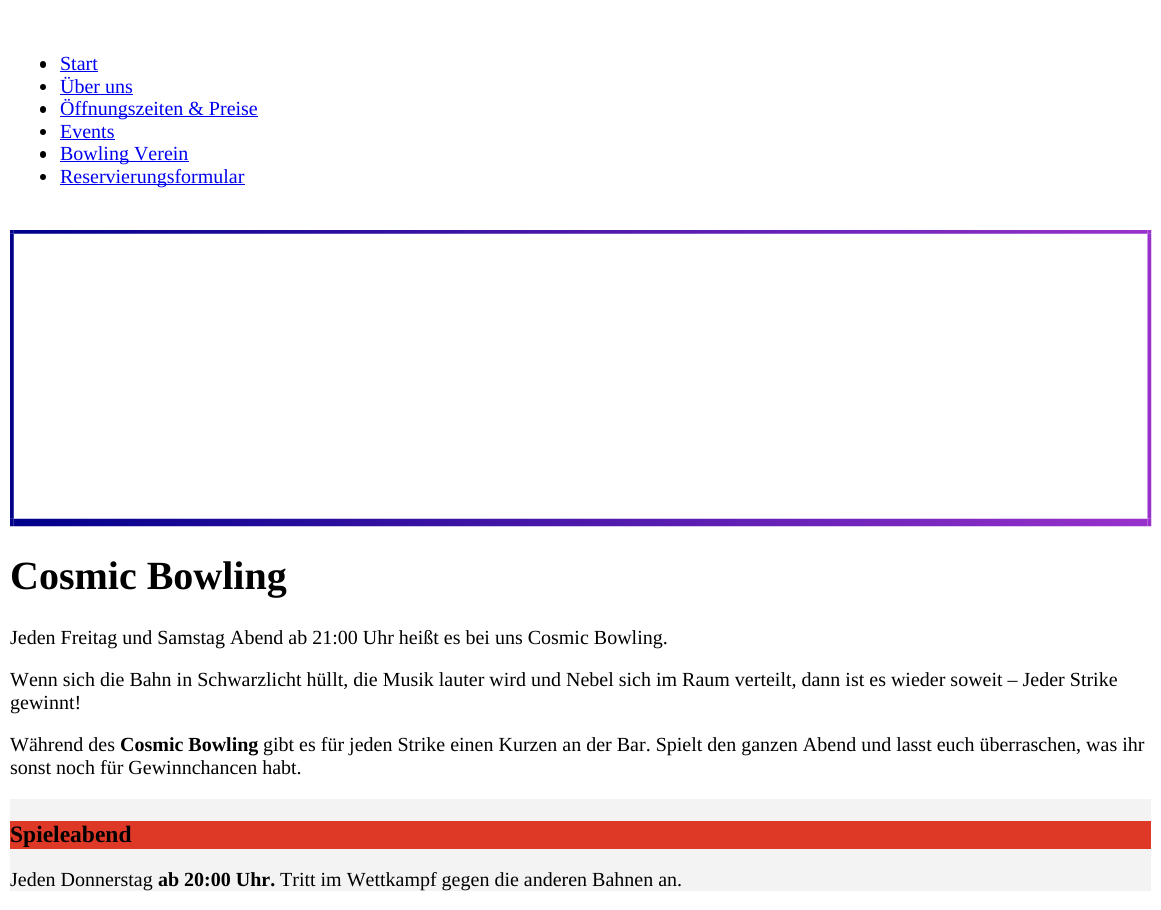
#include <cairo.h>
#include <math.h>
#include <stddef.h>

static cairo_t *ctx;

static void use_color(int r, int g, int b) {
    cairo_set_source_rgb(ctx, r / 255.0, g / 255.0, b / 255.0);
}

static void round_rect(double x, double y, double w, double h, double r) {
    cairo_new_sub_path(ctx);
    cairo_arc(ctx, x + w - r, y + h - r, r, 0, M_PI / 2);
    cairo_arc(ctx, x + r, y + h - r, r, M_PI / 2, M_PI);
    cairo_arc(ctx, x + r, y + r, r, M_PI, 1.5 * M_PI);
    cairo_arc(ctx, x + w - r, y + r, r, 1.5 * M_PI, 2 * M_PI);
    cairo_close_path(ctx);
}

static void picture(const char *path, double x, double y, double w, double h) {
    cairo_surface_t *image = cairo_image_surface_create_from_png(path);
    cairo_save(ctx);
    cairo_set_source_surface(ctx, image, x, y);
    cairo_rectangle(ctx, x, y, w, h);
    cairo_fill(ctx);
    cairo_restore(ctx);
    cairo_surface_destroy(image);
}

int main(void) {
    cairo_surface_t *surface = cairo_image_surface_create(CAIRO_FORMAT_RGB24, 1161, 910);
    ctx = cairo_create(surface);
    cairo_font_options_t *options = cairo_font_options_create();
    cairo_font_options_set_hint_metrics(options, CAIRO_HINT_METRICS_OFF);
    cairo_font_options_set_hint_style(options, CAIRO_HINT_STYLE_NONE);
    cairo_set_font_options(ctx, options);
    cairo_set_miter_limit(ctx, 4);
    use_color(255, 255, 255);
    cairo_paint(ctx);
    use_color(0, 0, 0);
    round_rect(40, 61, 6, 7, 3);
    cairo_fill(ctx);
    cairo_select_font_face(ctx, "Liberation Serif", CAIRO_FONT_SLANT_NORMAL, CAIRO_FONT_WEIGHT_NORMAL);
    cairo_set_font_size(ctx, 20);
    use_color(0, 0, 238);
    cairo_move_to(ctx, 60, 70);
    cairo_show_text(ctx, "Start");
    cairo_rectangle(ctx, 60, 71, 38, 1);
    cairo_fill(ctx);
    use_color(0, 0, 0);
    cairo_arc(ctx, 43, 87, 3, 0, 2 * M_PI);
    cairo_fill(ctx);
    use_color(0, 0, 238);
    cairo_move_to(ctx, 60, 93);
    cairo_show_text(ctx, "Über uns");
    cairo_rectangle(ctx, 60, 94, 73, 1);
    cairo_fill(ctx);
    use_color(0, 0, 0);
    round_rect(40, 106, 6, 7, 3);
    cairo_fill(ctx);
    use_color(0, 0, 238);
    cairo_rectangle(ctx, 60, 116, 198, 1);
    cairo_fill(ctx);
    cairo_move_to(ctx, 60, 115);
    cairo_show_text(ctx, "Öffnungszeiten & Preise");
    use_color(0, 0, 0);
    cairo_new_path(ctx);
    cairo_arc(ctx, 43, 132, 3, 0, 2 * M_PI);
    cairo_fill(ctx);
    use_color(0, 0, 238);
    cairo_move_to(ctx, 60, 138);
    cairo_show_text(ctx, "Events");
    cairo_rectangle(ctx, 60, 139, 55, 1);
    cairo_fill(ctx);
    use_color(0, 0, 0);
    round_rect(40, 151, 6, 7, 3);
    cairo_fill(ctx);
    use_color(0, 0, 238);
    cairo_rectangle(ctx, 60, 161, 129, 1);
    cairo_fill(ctx);
    cairo_move_to(ctx, 60, 160);
    cairo_show_text(ctx, "Bowling Verein");
    use_color(0, 0, 0);
    cairo_new_path(ctx);
    cairo_arc(ctx, 43, 177, 3, 0, 2 * M_PI);
    cairo_fill(ctx);
    use_color(0, 0, 238);
    cairo_rectangle(ctx, 60, 184, 185, 1);
    cairo_fill(ctx);
    cairo_move_to(ctx, 60, 183);
    cairo_show_text(ctx, "Reservierungsformular");
    picture("img1.png", 10, 230, 1142, 297);
    cairo_select_font_face(ctx, "Liberation Serif", CAIRO_FONT_SLANT_NORMAL, CAIRO_FONT_WEIGHT_BOLD);
    cairo_set_font_size(ctx, 40);
    use_color(0, 0, 0);
    cairo_move_to(ctx, 10, 589);
    cairo_show_text(ctx, "Cosmic Bowling");
    cairo_select_font_face(ctx, "Liberation Serif", CAIRO_FONT_SLANT_NORMAL, CAIRO_FONT_WEIGHT_NORMAL);
    cairo_set_font_size(ctx, 20);
    cairo_move_to(ctx, 10, 644);
    cairo_show_text(ctx, "Jeden Freitag und Samstag Abend ab 21:00 Uhr heißt es bei uns Cosmic Bowling.");
    cairo_move_to(ctx, 10, 686);
    cairo_show_text(ctx, "Wenn sich die Bahn in Schwarzlicht hüllt, die Musik lauter wird und Nebel sich im Raum verteilt, dann ist es wieder soweit – Jeder Strike");
    cairo_move_to(ctx, 10, 709);
    cairo_show_text(ctx, "gewinnt!");
    cairo_move_to(ctx, 10, 751);
    cairo_show_text(ctx, "Während des");
    cairo_select_font_face(ctx, "Liberation Serif", CAIRO_FONT_SLANT_NORMAL, CAIRO_FONT_WEIGHT_BOLD);
    cairo_move_to(ctx, 120, 751);
    cairo_show_text(ctx, "Cosmic Bowling");
    cairo_select_font_face(ctx, "Liberation Serif", CAIRO_FONT_SLANT_NORMAL, CAIRO_FONT_WEIGHT_NORMAL);
    cairo_move_to(ctx, 263, 751);
    cairo_show_text(ctx, "gibt es für jeden Strike einen Kurzen an der Bar. Spielt den ganzen Abend und lasst euch überraschen, was ihr");
    cairo_move_to(ctx, 10, 774);
    cairo_show_text(ctx, "sonst noch für Gewinnchancen habt.");
    use_color(243, 243, 243);
    cairo_rectangle(ctx, 10, 799, 1141, 92);
    cairo_fill(ctx);
    use_color(222, 57, 38);
    cairo_rectangle(ctx, 10, 821, 1141, 28);
    cairo_fill(ctx);
    cairo_select_font_face(ctx, "Liberation Serif", CAIRO_FONT_SLANT_NORMAL, CAIRO_FONT_WEIGHT_BOLD);
    cairo_set_font_size(ctx, 23.5);
    use_color(0, 0, 0);
    cairo_move_to(ctx, 10, 842);
    cairo_show_text(ctx, "Spieleabend");
    cairo_select_font_face(ctx, "Liberation Serif", CAIRO_FONT_SLANT_NORMAL, CAIRO_FONT_WEIGHT_NORMAL);
    cairo_set_font_size(ctx, 20);
    cairo_move_to(ctx, 10, 886);
    cairo_show_text(ctx, "Jeden Donnerstag");
    cairo_select_font_face(ctx, "Liberation Serif", CAIRO_FONT_SLANT_NORMAL, CAIRO_FONT_WEIGHT_BOLD);
    cairo_move_to(ctx, 158, 886);
    cairo_show_text(ctx, "ab 20:00 Uhr.");
    cairo_select_font_face(ctx, "Liberation Serif", CAIRO_FONT_SLANT_NORMAL, CAIRO_FONT_WEIGHT_NORMAL);
    cairo_move_to(ctx, 280, 886);
    cairo_show_text(ctx, "Tritt im Wettkampf gegen die anderen Bahnen an.");
    cairo_surface_write_to_png(surface, "result.png");
    cairo_font_options_destroy(options);
    cairo_destroy(ctx);
    cairo_surface_destroy(surface);
    return 0;
}
